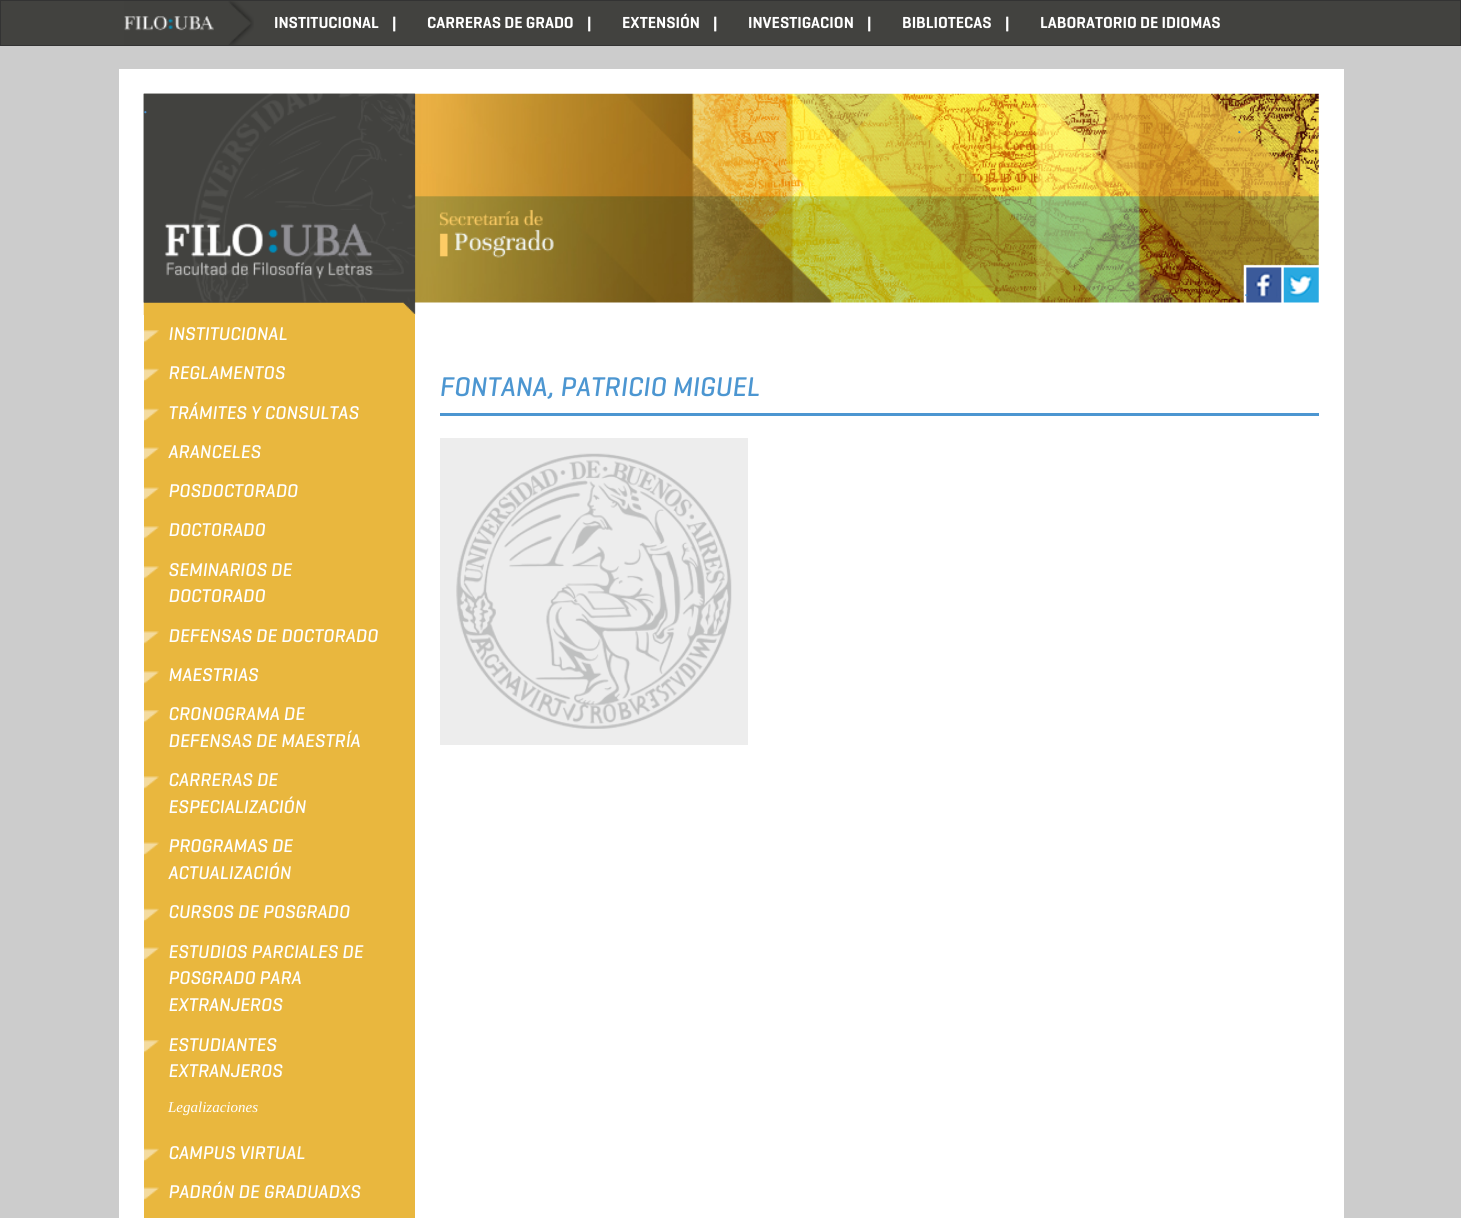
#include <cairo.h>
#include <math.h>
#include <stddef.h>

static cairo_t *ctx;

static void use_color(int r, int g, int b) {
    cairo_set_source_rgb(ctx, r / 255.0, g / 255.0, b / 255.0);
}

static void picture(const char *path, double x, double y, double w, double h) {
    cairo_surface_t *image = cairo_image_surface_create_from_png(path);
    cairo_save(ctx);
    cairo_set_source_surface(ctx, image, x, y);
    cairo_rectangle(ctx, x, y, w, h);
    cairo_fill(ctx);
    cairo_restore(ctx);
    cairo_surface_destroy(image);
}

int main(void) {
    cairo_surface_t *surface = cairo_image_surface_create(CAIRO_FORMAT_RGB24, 1461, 1218);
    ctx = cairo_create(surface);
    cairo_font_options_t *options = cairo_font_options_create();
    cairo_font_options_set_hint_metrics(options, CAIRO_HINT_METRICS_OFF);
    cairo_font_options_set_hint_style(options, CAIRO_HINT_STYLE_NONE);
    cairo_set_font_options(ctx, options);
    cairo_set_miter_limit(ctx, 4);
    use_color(204, 204, 204);
    cairo_paint(ctx);
    use_color(66, 66, 63);
    cairo_rectangle(ctx, 0.5, 0.5, 1460, 45);
    cairo_fill_preserve(ctx);
    use_color(51, 51, 51);
    cairo_set_line_width(ctx, 1);
    cairo_stroke(ctx);
    picture("img1.png", 124, 1, 130, 44);
    cairo_select_font_face(ctx, "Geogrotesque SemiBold", CAIRO_FONT_SLANT_NORMAL, CAIRO_FONT_WEIGHT_NORMAL);
    cairo_set_font_size(ctx, 16.25);
    use_color(255, 255, 255);
    cairo_move_to(ctx, 274, 28);
    cairo_show_text(ctx, "INSTITUCIONAL");
    cairo_move_to(ctx, 392, 28);
    cairo_show_text(ctx, "|");
    cairo_move_to(ctx, 427, 28);
    cairo_show_text(ctx, "CARRERAS DE GRADO");
    cairo_move_to(ctx, 587, 28);
    cairo_show_text(ctx, "|");
    cairo_move_to(ctx, 622, 28);
    cairo_show_text(ctx, "EXTENSIÓN");
    cairo_move_to(ctx, 713, 28);
    cairo_show_text(ctx, "|");
    cairo_move_to(ctx, 748, 28);
    cairo_show_text(ctx, "INVESTIGACION");
    cairo_move_to(ctx, 867, 28);
    cairo_show_text(ctx, "|");
    cairo_move_to(ctx, 902, 28);
    cairo_show_text(ctx, "BIBLIOTECAS");
    cairo_move_to(ctx, 1005, 28);
    cairo_show_text(ctx, "|");
    cairo_move_to(ctx, 1040, 28);
    cairo_show_text(ctx, "LABORATORIO DE IDIOMAS");
    cairo_rectangle(ctx, 119, 69, 1225, 1149);
    cairo_fill(ctx);
    picture("img2.png", 143, 93, 1176, 222);
    picture("img3.png", 143, 93, 272, 210);
    cairo_select_font_face(ctx, "Liberation Serif", CAIRO_FONT_SLANT_NORMAL, CAIRO_FONT_WEIGHT_NORMAL);
    cairo_set_font_size(ctx, 18.75);
    use_color(66, 139, 202);
    cairo_move_to(ctx, 143, 113);
    cairo_show_text(ctx, ".");
    cairo_move_to(ctx, 1237, 133);
    cairo_show_text(ctx, ".");
    cairo_move_to(ctx, 1244, 296);
    cairo_show_text(ctx, ".");
    use_color(233, 183, 62);
    cairo_rectangle(ctx, 144, 315, 271, 903);
    cairo_fill(ctx);
    picture("img4.png", 144, 330, 15, 13);
    cairo_select_font_face(ctx, "Geogrotesque Medium", CAIRO_FONT_SLANT_ITALIC, CAIRO_FONT_WEIGHT_NORMAL);
    use_color(255, 255, 255);
    cairo_move_to(ctx, 168, 340);
    cairo_show_text(ctx, "INSTITUCIONAL");
    picture("img5.png", 144, 368, 15, 14);
    cairo_move_to(ctx, 168, 379);
    cairo_show_text(ctx, "REGLAMENTOS");
    picture("img5.png", 144, 408, 15, 14);
    cairo_move_to(ctx, 168, 419);
    cairo_show_text(ctx, "TRÁMITES Y CONSULTAS");
    picture("img6.png", 144, 447, 15, 13);
    cairo_move_to(ctx, 168, 458);
    cairo_show_text(ctx, "ARANCELES");
    picture("img6.png", 144, 487, 15, 13);
    cairo_move_to(ctx, 168, 497);
    cairo_show_text(ctx, "POSDOCTORADO");
    picture("img7.png", 144, 526, 15, 13);
    cairo_move_to(ctx, 168, 536);
    cairo_show_text(ctx, "DOCTORADO");
    picture("img7.png", 144, 566, 15, 13);
    cairo_move_to(ctx, 168, 576);
    cairo_show_text(ctx, "SEMINARIOS DE");
    cairo_move_to(ctx, 168, 602);
    cairo_show_text(ctx, "DOCTORADO");
    picture("img7.png", 144, 631, 15, 13);
    cairo_move_to(ctx, 168, 642);
    cairo_show_text(ctx, "DEFENSAS DE DOCTORADO");
    picture("img7.png", 144, 671, 15, 13);
    cairo_move_to(ctx, 168, 681);
    cairo_show_text(ctx, "MAESTRIAS");
    picture("img4.png", 144, 710, 15, 13);
    cairo_move_to(ctx, 168, 720);
    cairo_show_text(ctx, "CRONOGRAMA DE");
    cairo_move_to(ctx, 168, 747);
    cairo_show_text(ctx, "DEFENSAS DE MAESTRÍA");
    picture("img8.png", 144, 776, 15, 13);
    cairo_move_to(ctx, 168, 786);
    cairo_show_text(ctx, "CARRERAS DE");
    cairo_move_to(ctx, 168, 813);
    cairo_show_text(ctx, "ESPECIALIZACIÓN");
    picture("img6.png", 144, 842, 15, 13);
    cairo_move_to(ctx, 168, 852);
    cairo_show_text(ctx, "PROGRAMAS DE");
    cairo_move_to(ctx, 168, 879);
    cairo_show_text(ctx, "ACTUALIZACIÓN");
    picture("img5.png", 144, 908, 15, 14);
    cairo_move_to(ctx, 168, 918);
    cairo_show_text(ctx, "CURSOS DE POSGRADO");
    picture("img6.png", 144, 947, 15, 13);
    cairo_move_to(ctx, 168, 958);
    cairo_show_text(ctx, "ESTUDIOS PARCIALES DE");
    cairo_move_to(ctx, 168, 984);
    cairo_show_text(ctx, "POSGRADO PARA");
    cairo_move_to(ctx, 168, 1011);
    cairo_show_text(ctx, "EXTRANJEROS");
    picture("img4.png", 144, 1040, 15, 13);
    cairo_move_to(ctx, 168, 1051);
    cairo_show_text(ctx, "ESTUDIANTES");
    cairo_move_to(ctx, 168, 1077);
    cairo_show_text(ctx, "EXTRANJEROS");
    cairo_select_font_face(ctx, "Liberation Serif", CAIRO_FONT_SLANT_ITALIC, CAIRO_FONT_WEIGHT_NORMAL);
    cairo_set_font_size(ctx, 15);
    cairo_move_to(ctx, 168, 1112);
    cairo_show_text(ctx, "Legalizaciones");
    picture("img5.png", 144, 1148, 15, 14);
    cairo_select_font_face(ctx, "Geogrotesque Medium", CAIRO_FONT_SLANT_ITALIC, CAIRO_FONT_WEIGHT_NORMAL);
    cairo_set_font_size(ctx, 18.75);
    cairo_move_to(ctx, 168, 1159);
    cairo_show_text(ctx, "CAMPUS VIRTUAL");
    picture("img6.png", 144, 1187, 15, 13);
    cairo_move_to(ctx, 168, 1198);
    cairo_show_text(ctx, "PADRÓN DE GRADUADXS");
    use_color(76, 150, 209);
    cairo_rectangle(ctx, 440, 413, 879, 3);
    cairo_fill(ctx);
    cairo_set_font_size(ctx, 27.5);
    cairo_move_to(ctx, 439, 396);
    cairo_show_text(ctx, "FONTANA, PATRICIO MIGUEL");
    use_color(237, 237, 237);
    cairo_rectangle(ctx, 440, 438, 308, 307);
    cairo_fill(ctx);
    picture("img9.png", 456, 453, 276, 276);
    cairo_surface_write_to_png(surface, "result.png");
    cairo_font_options_destroy(options);
    cairo_destroy(ctx);
    cairo_surface_destroy(surface);
    return 0;
}
